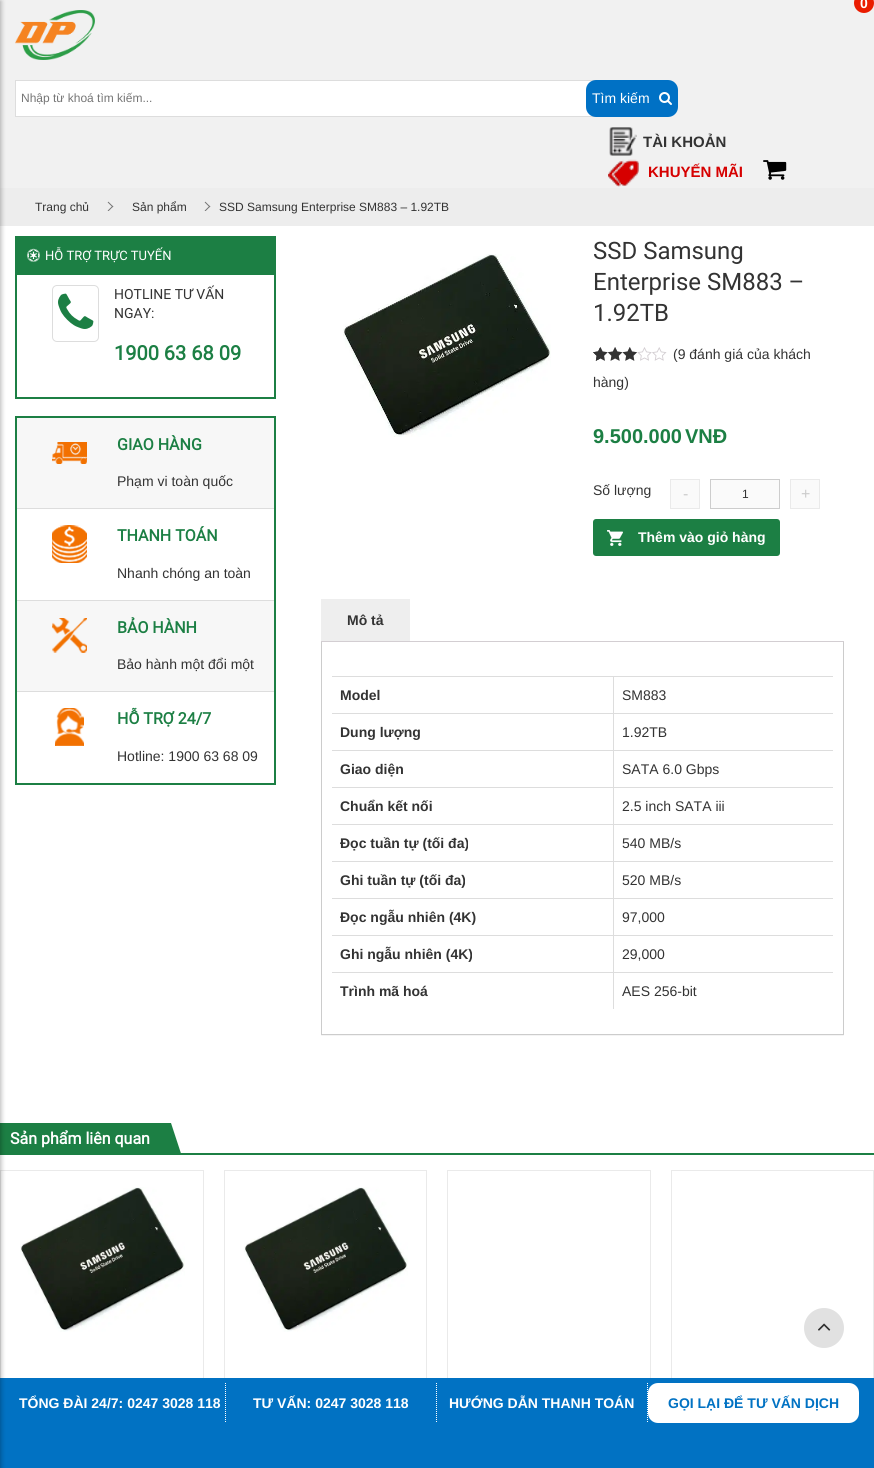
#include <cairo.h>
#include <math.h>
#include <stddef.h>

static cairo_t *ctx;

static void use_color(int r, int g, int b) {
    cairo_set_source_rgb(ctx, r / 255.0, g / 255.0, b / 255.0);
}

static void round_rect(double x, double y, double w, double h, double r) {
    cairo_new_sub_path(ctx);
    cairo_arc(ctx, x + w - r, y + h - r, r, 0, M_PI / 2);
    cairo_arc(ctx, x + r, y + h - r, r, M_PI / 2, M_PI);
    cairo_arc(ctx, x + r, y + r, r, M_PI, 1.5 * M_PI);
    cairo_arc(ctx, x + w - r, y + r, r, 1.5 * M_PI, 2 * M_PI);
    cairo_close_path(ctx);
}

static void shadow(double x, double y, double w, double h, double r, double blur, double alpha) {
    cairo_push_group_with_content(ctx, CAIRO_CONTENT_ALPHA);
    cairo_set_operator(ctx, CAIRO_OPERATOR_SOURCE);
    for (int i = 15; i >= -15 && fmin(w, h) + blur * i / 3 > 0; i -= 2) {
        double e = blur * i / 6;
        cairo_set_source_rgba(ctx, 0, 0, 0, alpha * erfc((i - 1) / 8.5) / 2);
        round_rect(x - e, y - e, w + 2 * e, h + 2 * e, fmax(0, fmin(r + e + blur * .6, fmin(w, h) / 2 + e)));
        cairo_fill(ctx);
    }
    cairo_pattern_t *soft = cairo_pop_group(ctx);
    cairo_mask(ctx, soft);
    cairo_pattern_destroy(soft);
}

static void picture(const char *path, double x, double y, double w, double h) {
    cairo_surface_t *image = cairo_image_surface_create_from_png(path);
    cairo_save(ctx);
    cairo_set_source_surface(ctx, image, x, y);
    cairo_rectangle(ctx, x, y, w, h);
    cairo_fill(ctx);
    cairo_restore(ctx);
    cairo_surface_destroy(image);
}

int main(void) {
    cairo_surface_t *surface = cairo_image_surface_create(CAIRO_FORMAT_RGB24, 874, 1468);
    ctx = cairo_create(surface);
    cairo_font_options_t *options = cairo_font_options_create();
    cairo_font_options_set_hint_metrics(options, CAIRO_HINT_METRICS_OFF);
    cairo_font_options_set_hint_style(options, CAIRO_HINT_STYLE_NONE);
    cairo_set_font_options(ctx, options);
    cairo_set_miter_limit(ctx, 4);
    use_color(255, 255, 255);
    cairo_paint(ctx);
    use_color(241, 241, 241);
    cairo_rectangle(ctx, 0, 0, 874, 188);
    cairo_fill(ctx);
    use_color(237, 237, 237);
    cairo_rectangle(ctx, 0, 188, 874, 38);
    cairo_fill(ctx);
    use_color(28, 127, 68);
    cairo_rectangle(ctx, 0, 1153, 874, 2);
    cairo_fill(ctx);
    cairo_rectangle(ctx, 0, 1123, 161, 30);
    cairo_fill(ctx);
    cairo_rectangle(ctx, 0.5, 1170.5, 203, 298);
    use_color(234, 234, 234);
    cairo_set_line_width(ctx, 1);
    cairo_stroke(ctx);
    cairo_rectangle(ctx, 224.5, 1170.5, 202, 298);
    cairo_stroke(ctx);
    cairo_rectangle(ctx, 447.5, 1170.5, 203, 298);
    cairo_stroke(ctx);
    cairo_rectangle(ctx, 671.5, 1170.5, 202, 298);
    cairo_stroke(ctx);
    use_color(1, 114, 195);
    cairo_rectangle(ctx, 0, 1378, 874, 90);
    cairo_fill(ctx);
    use_color(0, 0, 0);
    shadow(-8, 1, 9, 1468, 0, 2.5, 0.3);
    picture("img1.png", 15, 10, 80, 50);
    use_color(234, 28, 0);
    cairo_arc(ctx, 864, 3, 10, 0, 2 * M_PI);
    cairo_fill(ctx);
    cairo_select_font_face(ctx, "Liberation Sans", CAIRO_FONT_SLANT_NORMAL, CAIRO_FONT_WEIGHT_BOLD);
    cairo_set_font_size(ctx, 14);
    use_color(255, 255, 255);
    cairo_move_to(ctx, 860, 8);
    cairo_show_text(ctx, "0");
    picture("img2.png", 763, 160, 24, 20);
    picture("img3.png", 609, 127, 28, 29);
    cairo_set_font_size(ctx, 15);
    use_color(51, 51, 51);
    cairo_move_to(ctx, 643, 147);
    cairo_show_text(ctx, "TÀI KHOẢN");
    picture("img4.png", 608, 159, 31, 28);
    use_color(214, 0, 0);
    cairo_move_to(ctx, 648, 177);
    cairo_show_text(ctx, "KHUYẾN MÃI");
    use_color(255, 255, 255);
    cairo_rectangle(ctx, 16, 81, 576, 35);
    cairo_fill(ctx);
    cairo_rectangle(ctx, 15.5, 80.5, 590, 36);
    use_color(221, 221, 221);
    cairo_stroke(ctx);
    cairo_select_font_face(ctx, "Liberation Sans", CAIRO_FONT_SLANT_NORMAL, CAIRO_FONT_WEIGHT_NORMAL);
    cairo_set_font_size(ctx, 12);
    use_color(117, 117, 117);
    cairo_move_to(ctx, 21, 102);
    cairo_show_text(ctx, "Nhập từ khoá tìm kiếm...");
    use_color(0, 113, 197);
    round_rect(586, 80, 92, 37, 10);
    cairo_fill(ctx);
    cairo_set_font_size(ctx, 14);
    use_color(255, 255, 255);
    cairo_move_to(ctx, 592, 103);
    cairo_show_text(ctx, "Tìm kiếm");
    picture("img5.png", 659, 92, 13, 13);
    cairo_set_font_size(ctx, 12);
    use_color(51, 51, 51);
    cairo_move_to(ctx, 35, 211);
    cairo_show_text(ctx, "Trang chủ");
    picture("img6.png", 107, 201, 7, 10);
    cairo_move_to(ctx, 132, 211);
    cairo_show_text(ctx, "Sản phẩm");
    picture("img6.png", 204, 201, 7, 10);
    cairo_move_to(ctx, 219, 211);
    cairo_show_text(ctx, "SSD Samsung Enterprise SM883 – 1.92TB");
    cairo_rectangle(ctx, 16, 237, 259, 161);
    use_color(28, 127, 68);
    cairo_set_line_width(ctx, 2);
    cairo_stroke(ctx);
    cairo_rectangle(ctx, 17, 238, 257, 37);
    cairo_fill(ctx);
    picture("img7.png", 27, 248, 13, 14);
    cairo_select_font_face(ctx, "Roboto", CAIRO_FONT_SLANT_NORMAL, CAIRO_FONT_WEIGHT_NORMAL);
    cairo_set_font_size(ctx, 13);
    use_color(255, 255, 255);
    cairo_move_to(ctx, 45, 260);
    cairo_show_text(ctx, "HỖ TRỢ TRỰC TUYẾN");
    round_rect(52.5, 285.5, 46, 56, 4.5);
    use_color(221, 221, 221);
    cairo_set_line_width(ctx, 1);
    cairo_stroke(ctx);
    picture("img8.png", 58, 293, 36, 36);
    cairo_set_font_size(ctx, 14);
    use_color(51, 51, 51);
    cairo_move_to(ctx, 114, 299);
    cairo_show_text(ctx, "HOTLINE TƯ VẤN");
    cairo_move_to(ctx, 114, 318);
    cairo_show_text(ctx, "NGAY:");
    cairo_select_font_face(ctx, "Roboto", CAIRO_FONT_SLANT_NORMAL, CAIRO_FONT_WEIGHT_BOLD);
    cairo_set_font_size(ctx, 20);
    use_color(28, 127, 68);
    cairo_move_to(ctx, 114, 360);
    cairo_show_text(ctx, "1900 63 68 09");
    cairo_rectangle(ctx, 16, 417, 259, 367);
    cairo_set_line_width(ctx, 2);
    cairo_stroke(ctx);
    use_color(247, 247, 247);
    cairo_rectangle(ctx, 17, 418, 257, 90);
    cairo_fill(ctx);
    use_color(221, 221, 221);
    cairo_rectangle(ctx, 17, 508, 257, 1);
    cairo_fill(ctx);
    picture("img9.png", 52, 442, 35, 22);
    cairo_set_font_size(ctx, 16);
    use_color(28, 127, 68);
    cairo_move_to(ctx, 117, 450);
    cairo_show_text(ctx, "GIAO HÀNG");
    cairo_select_font_face(ctx, "Liberation Sans", CAIRO_FONT_SLANT_NORMAL, CAIRO_FONT_WEIGHT_NORMAL);
    cairo_set_font_size(ctx, 14);
    use_color(51, 51, 51);
    cairo_move_to(ctx, 117, 486);
    cairo_show_text(ctx, "Phạm vi toàn quốc");
    use_color(221, 221, 221);
    cairo_rectangle(ctx, 17, 600, 257, 1);
    cairo_fill(ctx);
    picture("img10.png", 52, 525, 35, 38);
    cairo_select_font_face(ctx, "Roboto", CAIRO_FONT_SLANT_NORMAL, CAIRO_FONT_WEIGHT_BOLD);
    cairo_set_font_size(ctx, 16);
    use_color(28, 127, 68);
    cairo_move_to(ctx, 117, 541);
    cairo_show_text(ctx, "THANH TOÁN");
    cairo_select_font_face(ctx, "Liberation Sans", CAIRO_FONT_SLANT_NORMAL, CAIRO_FONT_WEIGHT_NORMAL);
    cairo_set_font_size(ctx, 14);
    use_color(51, 51, 51);
    cairo_move_to(ctx, 117, 578);
    cairo_show_text(ctx, "Nhanh chóng an toàn");
    use_color(247, 247, 247);
    cairo_rectangle(ctx, 17, 601, 257, 90);
    cairo_fill(ctx);
    use_color(221, 221, 221);
    cairo_rectangle(ctx, 17, 691, 257, 1);
    cairo_fill(ctx);
    picture("img11.png", 52, 618, 35, 35);
    cairo_select_font_face(ctx, "Roboto", CAIRO_FONT_SLANT_NORMAL, CAIRO_FONT_WEIGHT_BOLD);
    cairo_set_font_size(ctx, 16);
    use_color(28, 127, 68);
    cairo_move_to(ctx, 117, 633);
    cairo_show_text(ctx, "BẢO HÀNH");
    cairo_select_font_face(ctx, "Liberation Sans", CAIRO_FONT_SLANT_NORMAL, CAIRO_FONT_WEIGHT_NORMAL);
    cairo_set_font_size(ctx, 14);
    use_color(51, 51, 51);
    cairo_move_to(ctx, 117, 669);
    cairo_show_text(ctx, "Bảo hành một đổi một");
    picture("img12.png", 55, 708, 29, 38);
    cairo_select_font_face(ctx, "Roboto", CAIRO_FONT_SLANT_NORMAL, CAIRO_FONT_WEIGHT_BOLD);
    cairo_set_font_size(ctx, 16);
    use_color(28, 127, 68);
    cairo_move_to(ctx, 117, 724);
    cairo_show_text(ctx, "HỖ TRỢ 24/7");
    cairo_select_font_face(ctx, "Liberation Sans", CAIRO_FONT_SLANT_NORMAL, CAIRO_FONT_WEIGHT_NORMAL);
    cairo_set_font_size(ctx, 14);
    use_color(51, 51, 51);
    cairo_move_to(ctx, 117, 761);
    cairo_show_text(ctx, "Hotline: 1900 63 68 09");
    picture("img13.png", 343, 254, 208, 183);
    cairo_select_font_face(ctx, "Roboto", CAIRO_FONT_SLANT_NORMAL, CAIRO_FONT_WEIGHT_NORMAL);
    cairo_set_font_size(ctx, 24);
    cairo_move_to(ctx, 593, 259);
    cairo_show_text(ctx, "SSD Samsung");
    cairo_move_to(ctx, 593, 290);
    cairo_show_text(ctx, "Enterprise SM883 –");
    cairo_move_to(ctx, 593, 321);
    cairo_show_text(ctx, "1.92TB");
    picture("img14.png", 593, 347, 74, 14);
    picture("img15.png", 593, 347, 44, 14);
    picture("img16.png", 593, 347, 7, 14);
    cairo_select_font_face(ctx, "Liberation Sans", CAIRO_FONT_SLANT_NORMAL, CAIRO_FONT_WEIGHT_NORMAL);
    cairo_set_font_size(ctx, 14);
    cairo_move_to(ctx, 673, 359);
    cairo_show_text(ctx, "(9 đánh giá của khách");
    cairo_move_to(ctx, 593, 387);
    cairo_show_text(ctx, "hàng)");
    cairo_select_font_face(ctx, "Liberation Sans", CAIRO_FONT_SLANT_NORMAL, CAIRO_FONT_WEIGHT_BOLD);
    cairo_set_font_size(ctx, 20);
    use_color(28, 127, 68);
    cairo_move_to(ctx, 593, 443);
    cairo_show_text(ctx, "9.500.000");
    cairo_move_to(ctx, 685, 443);
    cairo_show_text(ctx, "VNĐ");
    cairo_select_font_face(ctx, "Liberation Sans", CAIRO_FONT_SLANT_NORMAL, CAIRO_FONT_WEIGHT_NORMAL);
    cairo_set_font_size(ctx, 14);
    use_color(51, 51, 51);
    cairo_move_to(ctx, 593, 495);
    cairo_show_text(ctx, "Số lượng");
    use_color(250, 250, 250);
    cairo_rectangle(ctx, 670.5, 479.5, 29, 29);
    cairo_fill_preserve(ctx);
    use_color(234, 234, 234);
    cairo_set_line_width(ctx, 1);
    cairo_stroke(ctx);
    cairo_set_font_size(ctx, 16);
    use_color(204, 204, 204);
    cairo_move_to(ctx, 683, 499);
    cairo_show_text(ctx, "-");
    use_color(250, 250, 250);
    cairo_rectangle(ctx, 710.5, 479.5, 69, 29);
    cairo_fill_preserve(ctx);
    use_color(205, 205, 205);
    cairo_stroke(ctx);
    cairo_set_font_size(ctx, 12);
    use_color(51, 51, 51);
    cairo_move_to(ctx, 742, 498);
    cairo_show_text(ctx, "1");
    use_color(250, 250, 250);
    cairo_rectangle(ctx, 790.5, 479.5, 29, 29);
    cairo_fill_preserve(ctx);
    use_color(234, 234, 234);
    cairo_stroke(ctx);
    cairo_set_font_size(ctx, 16);
    use_color(204, 204, 204);
    cairo_move_to(ctx, 801, 499);
    cairo_show_text(ctx, "+");
    use_color(28, 127, 68);
    round_rect(593, 519, 187, 37, 3);
    cairo_fill(ctx);
    picture("img17.png", 607, 530, 16, 16);
    cairo_select_font_face(ctx, "Liberation Sans", CAIRO_FONT_SLANT_NORMAL, CAIRO_FONT_WEIGHT_BOLD);
    cairo_set_font_size(ctx, 14);
    use_color(255, 255, 255);
    cairo_move_to(ctx, 638, 542);
    cairo_show_text(ctx, "Thêm vào giỏ hàng");
    cairo_rectangle(ctx, 321.5, 599.5, 88, 42);
    use_color(238, 238, 238);
    cairo_stroke(ctx);
    cairo_rectangle(ctx, 322, 600, 87, 41);
    cairo_fill(ctx);
    use_color(51, 51, 51);
    cairo_move_to(ctx, 347, 625);
    cairo_show_text(ctx, "Mô tả");
    cairo_save(ctx);
    cairo_rectangle(ctx, 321, 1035, 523, 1);
    cairo_clip(ctx);
    use_color(0, 0, 0);
    shadow(321, 643, 523, 393, 0, 0.5, 0.05);
    cairo_restore(ctx);
    use_color(211, 206, 210);
    cairo_rectangle(ctx, 321, 641, 523, 1);
    cairo_fill(ctx);
    use_color(204, 204, 204);
    cairo_rectangle(ctx, 843, 642, 1, 393);
    cairo_fill(ctx);
    cairo_rectangle(ctx, 321, 1034, 523, 1);
    cairo_fill(ctx);
    cairo_rectangle(ctx, 321, 642, 1, 393);
    cairo_fill(ctx);
    use_color(221, 221, 221);
    cairo_rectangle(ctx, 613, 676, 220, 1);
    cairo_fill(ctx);
    cairo_rectangle(ctx, 613, 713, 220, 1);
    cairo_fill(ctx);
    cairo_rectangle(ctx, 613, 750, 220, 1);
    cairo_fill(ctx);
    cairo_rectangle(ctx, 613, 787, 220, 1);
    cairo_fill(ctx);
    cairo_rectangle(ctx, 613, 824, 220, 1);
    cairo_fill(ctx);
    cairo_rectangle(ctx, 613, 861, 220, 1);
    cairo_fill(ctx);
    cairo_rectangle(ctx, 613, 898, 220, 1);
    cairo_fill(ctx);
    cairo_rectangle(ctx, 613, 935, 220, 1);
    cairo_fill(ctx);
    cairo_rectangle(ctx, 613, 972, 220, 1);
    cairo_fill(ctx);
    cairo_rectangle(ctx, 613, 972, 1, 37);
    cairo_fill(ctx);
    cairo_rectangle(ctx, 332, 972, 282, 1);
    cairo_fill(ctx);
    cairo_rectangle(ctx, 613, 935, 1, 38);
    cairo_fill(ctx);
    cairo_rectangle(ctx, 332, 935, 282, 1);
    cairo_fill(ctx);
    cairo_rectangle(ctx, 613, 898, 1, 38);
    cairo_fill(ctx);
    cairo_rectangle(ctx, 332, 898, 282, 1);
    cairo_fill(ctx);
    cairo_rectangle(ctx, 613, 861, 1, 38);
    cairo_fill(ctx);
    cairo_rectangle(ctx, 332, 861, 282, 1);
    cairo_fill(ctx);
    cairo_rectangle(ctx, 613, 824, 1, 38);
    cairo_fill(ctx);
    cairo_rectangle(ctx, 332, 824, 282, 1);
    cairo_fill(ctx);
    cairo_rectangle(ctx, 613, 787, 1, 38);
    cairo_fill(ctx);
    cairo_rectangle(ctx, 332, 787, 282, 1);
    cairo_fill(ctx);
    cairo_rectangle(ctx, 613, 750, 1, 38);
    cairo_fill(ctx);
    cairo_rectangle(ctx, 332, 750, 282, 1);
    cairo_fill(ctx);
    cairo_rectangle(ctx, 613, 713, 1, 38);
    cairo_fill(ctx);
    cairo_rectangle(ctx, 332, 713, 282, 1);
    cairo_fill(ctx);
    cairo_rectangle(ctx, 613, 676, 1, 38);
    cairo_fill(ctx);
    cairo_rectangle(ctx, 332, 676, 282, 1);
    cairo_fill(ctx);
    use_color(51, 51, 51);
    cairo_move_to(ctx, 340, 700);
    cairo_show_text(ctx, "Model");
    cairo_select_font_face(ctx, "Liberation Sans", CAIRO_FONT_SLANT_NORMAL, CAIRO_FONT_WEIGHT_NORMAL);
    cairo_move_to(ctx, 622, 700);
    cairo_show_text(ctx, "SM883");
    cairo_select_font_face(ctx, "Liberation Sans", CAIRO_FONT_SLANT_NORMAL, CAIRO_FONT_WEIGHT_BOLD);
    cairo_move_to(ctx, 340, 737);
    cairo_show_text(ctx, "Dung lượng");
    cairo_select_font_face(ctx, "Liberation Sans", CAIRO_FONT_SLANT_NORMAL, CAIRO_FONT_WEIGHT_NORMAL);
    cairo_move_to(ctx, 622, 737);
    cairo_show_text(ctx, "1.92TB");
    cairo_select_font_face(ctx, "Liberation Sans", CAIRO_FONT_SLANT_NORMAL, CAIRO_FONT_WEIGHT_BOLD);
    cairo_move_to(ctx, 340, 774);
    cairo_show_text(ctx, "Giao diện");
    cairo_select_font_face(ctx, "Liberation Sans", CAIRO_FONT_SLANT_NORMAL, CAIRO_FONT_WEIGHT_NORMAL);
    cairo_move_to(ctx, 622, 774);
    cairo_show_text(ctx, "SATA 6.0 Gbps");
    cairo_select_font_face(ctx, "Liberation Sans", CAIRO_FONT_SLANT_NORMAL, CAIRO_FONT_WEIGHT_BOLD);
    cairo_move_to(ctx, 340, 811);
    cairo_show_text(ctx, "Chuẩn kết nối");
    cairo_select_font_face(ctx, "Liberation Sans", CAIRO_FONT_SLANT_NORMAL, CAIRO_FONT_WEIGHT_NORMAL);
    cairo_move_to(ctx, 622, 811);
    cairo_show_text(ctx, "2.5 inch SATA iii");
    cairo_select_font_face(ctx, "Liberation Sans", CAIRO_FONT_SLANT_NORMAL, CAIRO_FONT_WEIGHT_BOLD);
    cairo_move_to(ctx, 340, 848);
    cairo_show_text(ctx, "Đọc tuần tự (tối đa)");
    cairo_select_font_face(ctx, "Liberation Sans", CAIRO_FONT_SLANT_NORMAL, CAIRO_FONT_WEIGHT_NORMAL);
    cairo_move_to(ctx, 622, 848);
    cairo_show_text(ctx, "540 MB/s");
    cairo_select_font_face(ctx, "Liberation Sans", CAIRO_FONT_SLANT_NORMAL, CAIRO_FONT_WEIGHT_BOLD);
    cairo_move_to(ctx, 340, 885);
    cairo_show_text(ctx, "Ghi tuần tự (tối đa)");
    cairo_select_font_face(ctx, "Liberation Sans", CAIRO_FONT_SLANT_NORMAL, CAIRO_FONT_WEIGHT_NORMAL);
    cairo_move_to(ctx, 622, 885);
    cairo_show_text(ctx, "520 MB/s");
    cairo_select_font_face(ctx, "Liberation Sans", CAIRO_FONT_SLANT_NORMAL, CAIRO_FONT_WEIGHT_BOLD);
    cairo_move_to(ctx, 340, 922);
    cairo_show_text(ctx, "Đọc ngẫu nhiên (4K)");
    cairo_select_font_face(ctx, "Liberation Sans", CAIRO_FONT_SLANT_NORMAL, CAIRO_FONT_WEIGHT_NORMAL);
    cairo_move_to(ctx, 622, 922);
    cairo_show_text(ctx, "97,000");
    cairo_select_font_face(ctx, "Liberation Sans", CAIRO_FONT_SLANT_NORMAL, CAIRO_FONT_WEIGHT_BOLD);
    cairo_move_to(ctx, 340, 959);
    cairo_show_text(ctx, "Ghi ngẫu nhiên (4K)");
    cairo_select_font_face(ctx, "Liberation Sans", CAIRO_FONT_SLANT_NORMAL, CAIRO_FONT_WEIGHT_NORMAL);
    cairo_move_to(ctx, 622, 959);
    cairo_show_text(ctx, "29,000");
    cairo_select_font_face(ctx, "Liberation Sans", CAIRO_FONT_SLANT_NORMAL, CAIRO_FONT_WEIGHT_BOLD);
    cairo_move_to(ctx, 340, 996);
    cairo_show_text(ctx, "Trình mã hoá");
    cairo_select_font_face(ctx, "Liberation Sans", CAIRO_FONT_SLANT_NORMAL, CAIRO_FONT_WEIGHT_NORMAL);
    cairo_move_to(ctx, 622, 996);
    cairo_show_text(ctx, "AES 256-bit");
    cairo_select_font_face(ctx, "Roboto", CAIRO_FONT_SLANT_NORMAL, CAIRO_FONT_WEIGHT_BOLD);
    cairo_set_font_size(ctx, 16);
    use_color(255, 255, 255);
    cairo_move_to(ctx, 10, 1144);
    cairo_show_text(ctx, "Sản phẩm liên quan");
    use_color(28, 127, 68);
    cairo_new_path(ctx);
    cairo_move_to(ctx, 151, 1123);
    cairo_line_to(ctx, 171, 1123);
    cairo_line_to(ctx, 181, 1153.5);
    cairo_line_to(ctx, 161, 1153.5);
    cairo_close_path(ctx);
    cairo_fill(ctx);
    picture("img18.png", 20, 1187, 165, 145);
    picture("img19.png", 244, 1187, 164, 145);
    use_color(225, 225, 225);
    cairo_arc(ctx, 824, 1328, 20, 0, 2 * M_PI);
    cairo_fill(ctx);
    picture("img20.png", 818, 1323, 13, 8);
    cairo_new_path(ctx);
    cairo_move_to(ctx, 225.5, 1383);
    cairo_line_to(ctx, 225.5, 1423);
    use_color(255, 255, 255);
    cairo_set_dash(ctx, (double[]){1, 1}, 2, 0);
    cairo_stroke(ctx);
    cairo_select_font_face(ctx, "Liberation Sans", CAIRO_FONT_SLANT_NORMAL, CAIRO_FONT_WEIGHT_BOLD);
    cairo_set_font_size(ctx, 14);
    cairo_move_to(ctx, 19, 1408);
    cairo_show_text(ctx, "TỔNG ĐÀI 24/7: 0247 3028 118");
    cairo_new_path(ctx);
    cairo_move_to(ctx, 436.5, 1383);
    cairo_line_to(ctx, 436.5, 1423);
    cairo_stroke(ctx);
    cairo_move_to(ctx, 253, 1408);
    cairo_show_text(ctx, "TƯ VẤN: 0247 3028 118");
    cairo_new_path(ctx);
    cairo_move_to(ctx, 647.5, 1383);
    cairo_line_to(ctx, 647.5, 1423);
    cairo_stroke(ctx);
    cairo_move_to(ctx, 449, 1408);
    cairo_show_text(ctx, "HƯỚNG DẪN THANH TOÁN");
    round_rect(648, 1383, 211, 40, 10);
    cairo_fill(ctx);
    use_color(1, 114, 195);
    cairo_move_to(ctx, 668, 1408);
    cairo_show_text(ctx, "GỌI LẠI ĐỂ TƯ VẤN DỊCH");
    cairo_surface_write_to_png(surface, "result.png");
    cairo_font_options_destroy(options);
    cairo_destroy(ctx);
    cairo_surface_destroy(surface);
    return 0;
}
